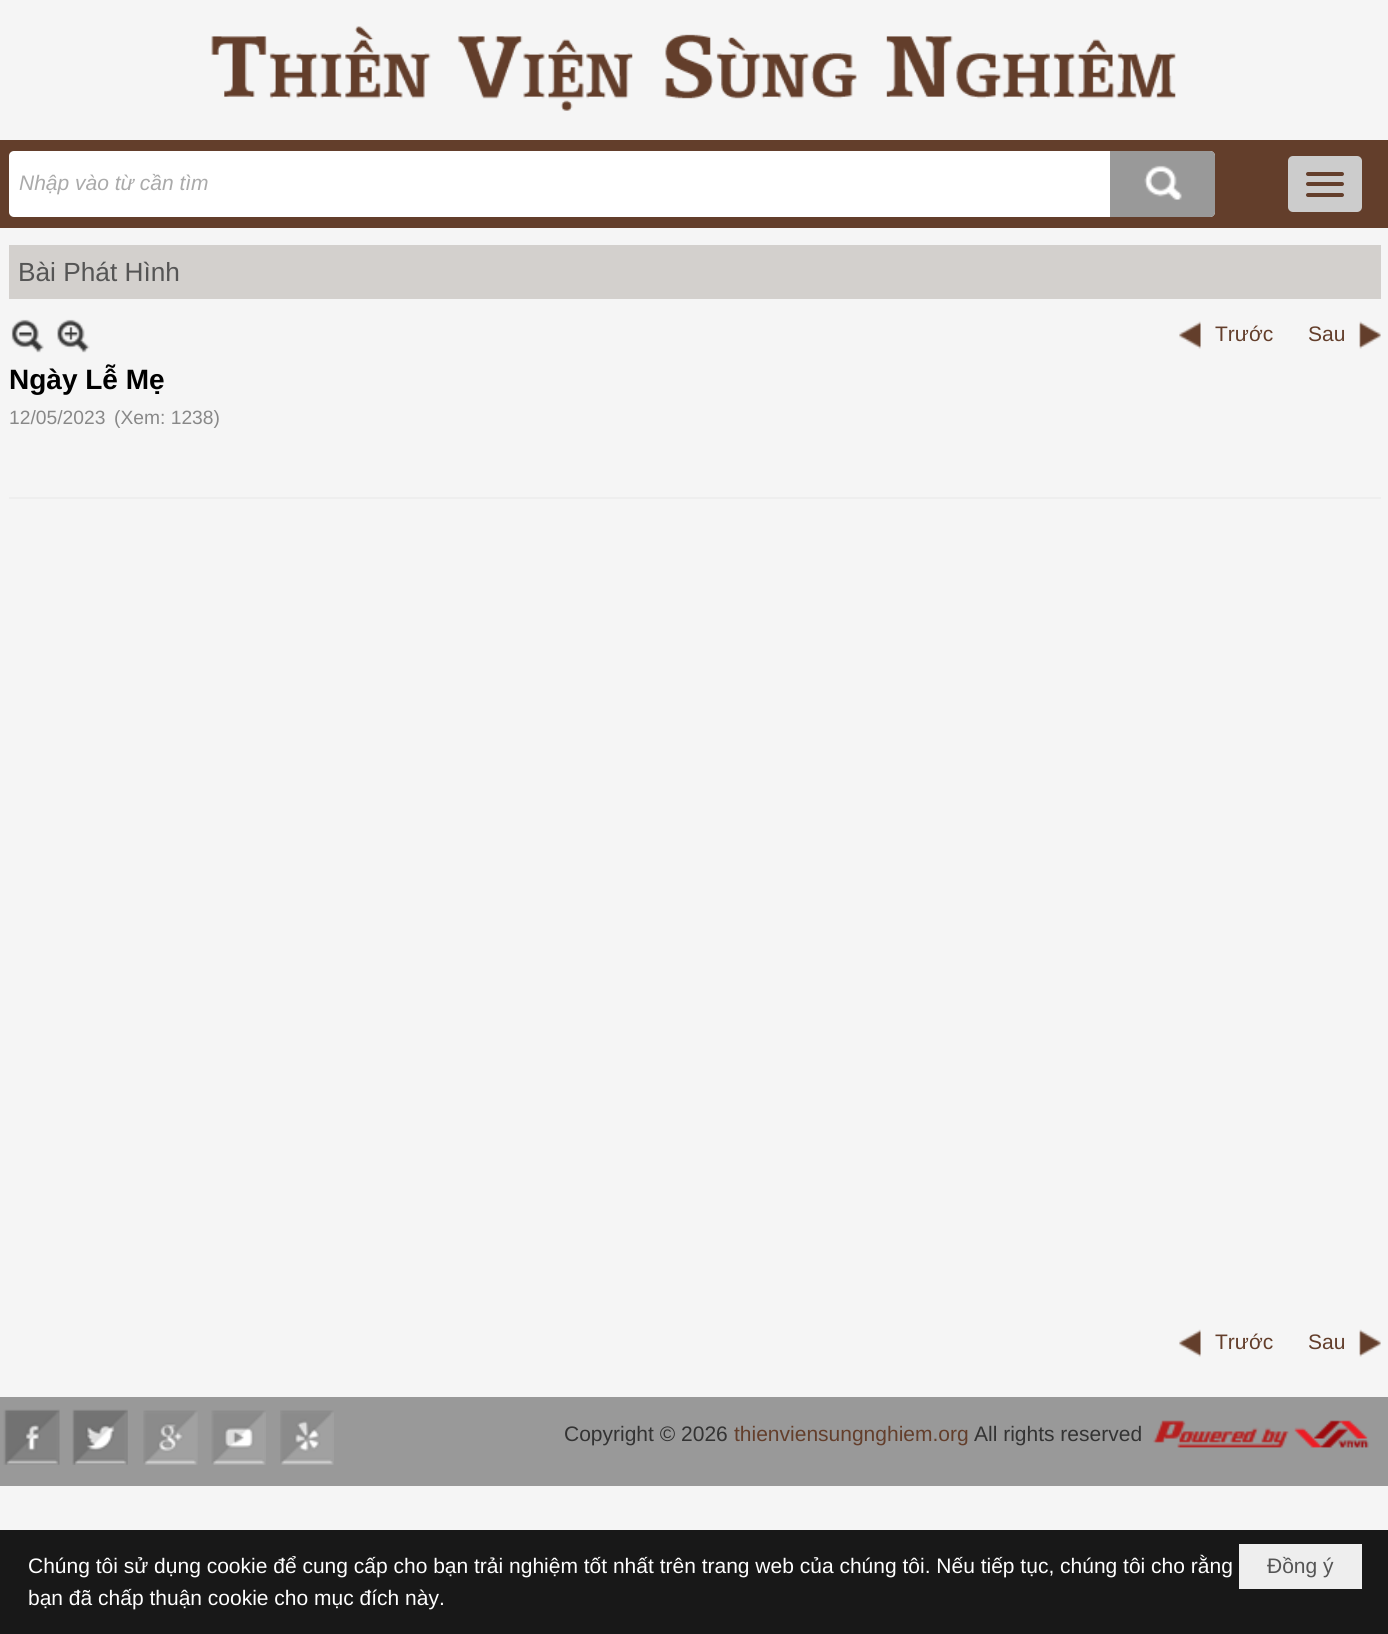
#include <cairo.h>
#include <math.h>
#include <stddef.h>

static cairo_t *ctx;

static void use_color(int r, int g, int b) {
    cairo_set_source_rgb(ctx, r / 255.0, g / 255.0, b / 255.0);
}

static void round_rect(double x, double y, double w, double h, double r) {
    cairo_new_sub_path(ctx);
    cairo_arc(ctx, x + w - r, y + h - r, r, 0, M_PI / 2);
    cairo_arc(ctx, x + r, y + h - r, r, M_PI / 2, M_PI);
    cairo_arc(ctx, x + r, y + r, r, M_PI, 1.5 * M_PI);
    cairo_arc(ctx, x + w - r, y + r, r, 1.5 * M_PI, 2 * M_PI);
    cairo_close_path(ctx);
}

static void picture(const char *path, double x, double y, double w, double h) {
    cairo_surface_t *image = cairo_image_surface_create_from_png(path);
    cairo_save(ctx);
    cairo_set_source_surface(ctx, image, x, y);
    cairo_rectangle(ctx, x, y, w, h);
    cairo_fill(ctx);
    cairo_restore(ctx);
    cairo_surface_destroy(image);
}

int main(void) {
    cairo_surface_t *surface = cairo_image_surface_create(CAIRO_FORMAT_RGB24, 1388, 1634);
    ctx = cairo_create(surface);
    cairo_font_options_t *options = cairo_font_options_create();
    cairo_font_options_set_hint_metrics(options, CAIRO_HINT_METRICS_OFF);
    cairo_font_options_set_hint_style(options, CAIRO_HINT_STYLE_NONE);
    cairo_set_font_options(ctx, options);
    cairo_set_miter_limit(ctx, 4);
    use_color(245, 245, 245);
    cairo_paint(ctx);
    picture("img1.png", 211, 26, 965, 85);
    use_color(99, 62, 43);
    cairo_rectangle(ctx, 0, 140, 1388, 88);
    cairo_fill(ctx);
    use_color(204, 204, 204);
    round_rect(1288, 156, 74, 56, 5);
    cairo_fill(ctx);
    use_color(99, 62, 43);
    round_rect(1306, 172, 38, 4, 2);
    cairo_fill(ctx);
    round_rect(1306, 182, 38, 4, 2);
    cairo_fill(ctx);
    round_rect(1306, 193, 38, 4, 2);
    cairo_fill(ctx);
    use_color(255, 255, 255);
    round_rect(9, 151, 1206, 66, 5);
    cairo_fill(ctx);
    cairo_select_font_face(ctx, "Liberation Sans", CAIRO_FONT_SLANT_ITALIC, CAIRO_FONT_WEIGHT_NORMAL);
    cairo_set_font_size(ctx, 21);
    use_color(170, 170, 170);
    cairo_move_to(ctx, 19, 190);
    cairo_show_text(ctx, "Nhập vào từ cần tìm");
    use_color(153, 153, 153);
    cairo_new_path(ctx);
    cairo_move_to(ctx, 1110, 151);
    cairo_line_to(ctx, 1210, 151);
    cairo_curve_to(ctx, 1213, 151, 1215, 153, 1215, 156);
    cairo_line_to(ctx, 1215, 212);
    cairo_curve_to(ctx, 1215, 215, 1213, 217, 1210, 217);
    cairo_line_to(ctx, 1110, 217);
    cairo_close_path(ctx);
    cairo_fill(ctx);
    picture("img2.png", 1144, 165, 38, 35);
    use_color(211, 208, 205);
    cairo_rectangle(ctx, 9, 245, 1372, 54);
    cairo_fill(ctx);
    cairo_select_font_face(ctx, "Liberation Sans", CAIRO_FONT_SLANT_NORMAL, CAIRO_FONT_WEIGHT_NORMAL);
    cairo_set_font_size(ctx, 26.25);
    use_color(85, 85, 85);
    cairo_move_to(ctx, 18, 281);
    cairo_show_text(ctx, "Bài Phát Hình");
    use_color(238, 238, 238);
    cairo_rectangle(ctx, 9, 497, 1372, 2);
    cairo_fill(ctx);
    picture("img3.png", 11, 319, 33, 34);
    picture("img4.png", 57, 319, 33, 34);
    picture("img5.png", 1179, 321, 22, 28);
    cairo_set_font_size(ctx, 21);
    use_color(99, 62, 43);
    cairo_move_to(ctx, 1215, 341);
    cairo_show_text(ctx, "Trước");
    picture("img6.png", 1359, 321, 22, 28);
    cairo_move_to(ctx, 1308, 341);
    cairo_show_text(ctx, "Sau");
    cairo_select_font_face(ctx, "Liberation Sans", CAIRO_FONT_SLANT_NORMAL, CAIRO_FONT_WEIGHT_BOLD);
    cairo_set_font_size(ctx, 28);
    use_color(0, 0, 0);
    cairo_move_to(ctx, 9, 389);
    cairo_show_text(ctx, "Ngày Lễ Mẹ");
    cairo_select_font_face(ctx, "Liberation Sans", CAIRO_FONT_SLANT_NORMAL, CAIRO_FONT_WEIGHT_NORMAL);
    cairo_set_font_size(ctx, 19.25);
    use_color(136, 136, 136);
    cairo_move_to(ctx, 9, 424);
    cairo_show_text(ctx, "12/05/2023");
    cairo_move_to(ctx, 114, 424);
    cairo_show_text(ctx, "(Xem: 1238)");
    picture("img5.png", 1179, 1329, 22, 28);
    cairo_set_font_size(ctx, 21);
    use_color(99, 62, 43);
    cairo_move_to(ctx, 1215, 1349);
    cairo_show_text(ctx, "Trước");
    picture("img6.png", 1359, 1329, 22, 28);
    cairo_move_to(ctx, 1308, 1349);
    cairo_show_text(ctx, "Sau");
    use_color(153, 153, 153);
    cairo_rectangle(ctx, 0, 1397, 1388, 89);
    cairo_fill(ctx);
    picture("img7.png", 3, 1409, 57, 56);
    picture("img8.png", 72, 1409, 56, 56);
    picture("img9.png", 143, 1410, 55, 55);
    picture("img10.png", 211, 1410, 55, 55);
    picture("img11.png", 280, 1410, 54, 55);
    use_color(51, 51, 51);
    cairo_move_to(ctx, 564, 1441);
    cairo_show_text(ctx, "Copyright © 2026");
    use_color(99, 62, 43);
    cairo_move_to(ctx, 734, 1441);
    cairo_show_text(ctx, "thienviensungnghiem.org");
    use_color(51, 51, 51);
    cairo_move_to(ctx, 974, 1441);
    cairo_show_text(ctx, "All rights reserved");
    picture("img12.png", 1153, 1420, 216, 28);
    use_color(24, 24, 24);
    cairo_rectangle(ctx, 0, 1530, 1388, 104);
    cairo_fill(ctx);
    use_color(255, 255, 255);
    cairo_move_to(ctx, 28, 1573);
    cairo_show_text(ctx, "Chúng tôi sử dụng cookie để cung cấp cho bạn trải nghiệm tốt nhất trên trang web của chúng tôi. Nếu tiếp tục, chúng tôi cho rằng");
    cairo_move_to(ctx, 28, 1605);
    cairo_show_text(ctx, "bạn đã chấp thuận cookie cho mục đích này.");
    use_color(238, 238, 238);
    cairo_rectangle(ctx, 1239, 1544, 123, 45);
    cairo_fill(ctx);
    use_color(85, 85, 85);
    cairo_move_to(ctx, 1267, 1573);
    cairo_show_text(ctx, "Đồng ý");
    cairo_surface_write_to_png(surface, "result.png");
    cairo_font_options_destroy(options);
    cairo_destroy(ctx);
    cairo_surface_destroy(surface);
    return 0;
}
